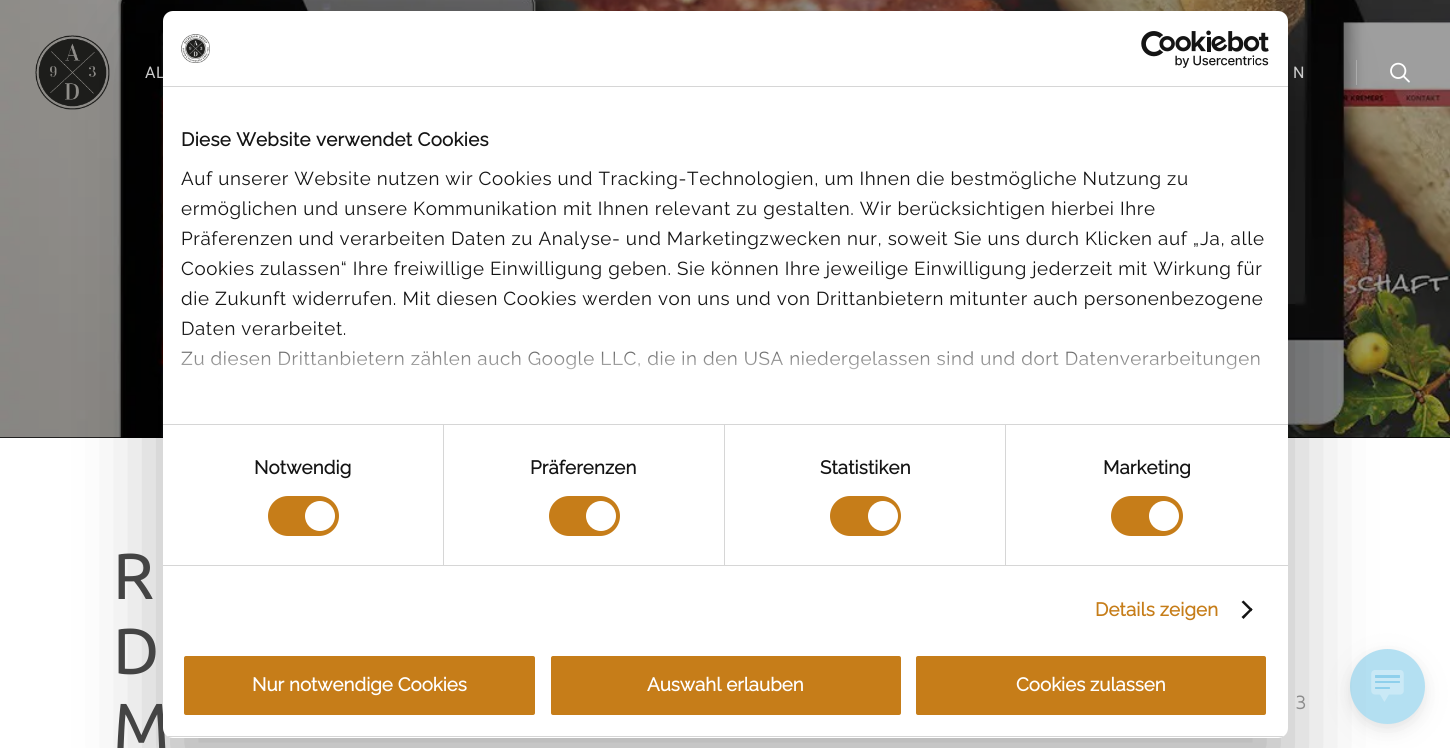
#include <cairo.h>
#include <math.h>
#include <stddef.h>

static cairo_t *ctx;

static void use_color(int r, int g, int b) {
    cairo_set_source_rgb(ctx, r / 255.0, g / 255.0, b / 255.0);
}

static void spaced_text(double x, double y, const char *s, double letter, double word) {
    cairo_move_to(ctx, x, y);
    while (*s) {
        char ch[5] = {0};
        int n = 0;
        do ch[n++] = *s++; while ((*s & 0xC0) == 0x80);
        cairo_show_text(ctx, ch);
        cairo_rel_move_to(ctx, letter + word * (*ch == ' '), 0);
    }
}

static void round_rect(double x, double y, double w, double h, double r) {
    cairo_new_sub_path(ctx);
    cairo_arc(ctx, x + w - r, y + h - r, r, 0, M_PI / 2);
    cairo_arc(ctx, x + r, y + h - r, r, M_PI / 2, M_PI);
    cairo_arc(ctx, x + r, y + r, r, M_PI, 1.5 * M_PI);
    cairo_arc(ctx, x + w - r, y + r, r, 1.5 * M_PI, 2 * M_PI);
    cairo_close_path(ctx);
}

static void shadow(double x, double y, double w, double h, double r, double blur, double alpha) {
    cairo_push_group_with_content(ctx, CAIRO_CONTENT_ALPHA);
    cairo_set_operator(ctx, CAIRO_OPERATOR_SOURCE);
    for (int i = 15; i >= -15 && fmin(w, h) + blur * i / 3 > 0; i -= 2) {
        double e = blur * i / 6;
        cairo_set_source_rgba(ctx, 0, 0, 0, alpha * erfc((i - 1) / 8.5) / 2);
        round_rect(x - e, y - e, w + 2 * e, h + 2 * e, fmax(0, fmin(r + e + blur * .6, fmin(w, h) / 2 + e)));
        cairo_fill(ctx);
    }
    cairo_pattern_t *soft = cairo_pop_group(ctx);
    cairo_mask(ctx, soft);
    cairo_pattern_destroy(soft);
}

static void picture(const char *path, double x, double y, double w, double h) {
    cairo_surface_t *image = cairo_image_surface_create_from_png(path);
    cairo_save(ctx);
    cairo_set_source_surface(ctx, image, x, y);
    cairo_rectangle(ctx, x, y, w, h);
    cairo_fill(ctx);
    cairo_restore(ctx);
    cairo_surface_destroy(image);
}

int main(void) {
    cairo_surface_t *surface = cairo_image_surface_create(CAIRO_FORMAT_RGB24, 1450, 748);
    ctx = cairo_create(surface);
    cairo_font_options_t *options = cairo_font_options_create();
    cairo_font_options_set_hint_metrics(options, CAIRO_HINT_METRICS_OFF);
    cairo_font_options_set_hint_style(options, CAIRO_HINT_STYLE_NONE);
    cairo_set_font_options(ctx, options);
    cairo_set_miter_limit(ctx, 4);
    cairo_pattern_t *gradient;
    use_color(255, 255, 255);
    cairo_paint(ctx);
    use_color(0, 0, 0);
    cairo_rectangle(ctx, 0, 437, 1450, 1);
    cairo_fill(ctx);
    picture("img5.png", 0, 0, 1450, 438);
    picture("img1.png", 35, 35, 75, 75);
    cairo_select_font_face(ctx, "Roboto", CAIRO_FONT_SLANT_NORMAL, CAIRO_FONT_WEIGHT_NORMAL);
    cairo_set_font_size(ctx, 16);
    use_color(230, 230, 230);
    spaced_text(145, 78, "AL", 0.62, 0);
    spaced_text(1293, 78, "N", 0.62, 0);
    use_color(173, 173, 173);
    cairo_rectangle(ctx, 1356, 60, 1, 25);
    cairo_fill(ctx);
    picture("img2.png", 1390, 62, 20, 21);
    use_color(179, 179, 179);
    shadow(1350, 656, 75, 75, 37.5, 12.5, 0.19);
    shadow(1350, 654, 75, 75, 37.5, 5, 0.2);
    use_color(180, 224, 242);
    cairo_arc(ctx, 1387.5, 686.5, 37.5, 0, 2 * M_PI);
    cairo_fill(ctx);
    picture("img6.png", 1371, 670, 33, 32);
    use_color(0, 0, 0);
    shadow(163, 51, 1125, 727, 10, 42.5, 0.3);
    cairo_select_font_face(ctx, "Ubuntu", CAIRO_FONT_SLANT_NORMAL, CAIRO_FONT_WEIGHT_NORMAL);
    cairo_set_font_size(ctx, 65);
    use_color(68, 68, 68);
    cairo_move_to(ctx, 113, 749);
    cairo_show_text(ctx, "M");
    use_color(255, 255, 255);
    round_rect(163, 11, 1125, 727, 10);
    cairo_fill(ctx);
    use_color(214, 214, 214);
    cairo_rectangle(ctx, 163, 86, 1125, 1);
    cairo_fill(ctx);
    picture("img3.png", 181, 34, 29, 29);
    picture("img4.png", 1141, 30, 128, 38);
    cairo_rectangle(ctx, 163, 424, 1125, 1);
    cairo_fill(ctx);
    cairo_select_font_face(ctx, "Raleway", CAIRO_FONT_SLANT_NORMAL, CAIRO_FONT_WEIGHT_BOLD);
    cairo_set_font_size(ctx, 18.75);
    use_color(20, 20, 20);
    spaced_text(181, 146, "Diese Website verwendet Cookies", 0.3, 0);
    cairo_select_font_face(ctx, "Raleway Thin", CAIRO_FONT_SLANT_NORMAL, CAIRO_FONT_WEIGHT_NORMAL);
    spaced_text(181, 185, "Auf unserer Website nutzen wir Cookies und Tracking-Technologien, um Ihnen die bestmögliche Nutzung zu", 0.62, 0);
    spaced_text(181, 215, "ermöglichen und unsere Kommunikation mit Ihnen relevant zu gestalten. Wir berücksichtigen hierbei Ihre", 0.62, 0);
    spaced_text(181, 245, "Präferenzen und verarbeiten Daten zu Analyse- und Marketingzwecken nur, soweit Sie uns durch Klicken auf „Ja, alle", 0.62, 0);
    spaced_text(181, 275, "Cookies zulassen“ Ihre freiwillige Einwilligung geben. Sie können Ihre jeweilige Einwilligung jederzeit mit Wirkung für", 0.62, 0);
    spaced_text(181, 305, "die Zukunft widerrufen. Mit diesen Cookies werden von uns und von Drittanbietern mitunter auch personenbezogene", 0.62, 0);
    spaced_text(181, 335, "Daten verarbeitet.", 0.62, 0);
    spaced_text(181, 365, "Zu diesen Drittanbietern zählen auch Google LLC, die in den USA niedergelassen sind und dort Datenverarbeitungen", 0.62, 0);
    gradient = cairo_pattern_create_linear(717, 424, 717, 330);
    cairo_pattern_add_color_stop_rgba(gradient, 0, 1, 1, 1, 1);
    cairo_pattern_add_color_stop_rgba(gradient, 0.5, 1, 1, 1, 0.8);
    cairo_pattern_add_color_stop_rgba(gradient, 1, 1, 1, 1, 0);
    cairo_set_source(ctx, gradient);
    cairo_pattern_destroy(gradient);
    cairo_rectangle(ctx, 181, 331, 1080, 39);
    cairo_fill(ctx);
    use_color(214, 214, 214);
    cairo_rectangle(ctx, 163, 565, 1125, 1);
    cairo_fill(ctx);
    cairo_rectangle(ctx, 443, 425, 1, 140);
    cairo_fill(ctx);
    cairo_select_font_face(ctx, "Raleway", CAIRO_FONT_SLANT_NORMAL, CAIRO_FONT_WEIGHT_BOLD);
    use_color(20, 20, 20);
    spaced_text(254, 474, "Notwendig", 0.1, 0);
    use_color(198, 125, 25);
    round_rect(268, 496, 71, 40, 20);
    cairo_fill(ctx);
    use_color(255, 255, 255);
    cairo_arc(ctx, 320, 516, 15, 0, 2 * M_PI);
    cairo_fill(ctx);
    use_color(214, 214, 214);
    cairo_rectangle(ctx, 724, 425, 1, 140);
    cairo_fill(ctx);
    use_color(20, 20, 20);
    spaced_text(530, 474, "Präferenzen", 0.1, 0);
    use_color(198, 125, 25);
    round_rect(549, 496, 71, 40, 20);
    cairo_fill(ctx);
    use_color(255, 255, 255);
    cairo_arc(ctx, 601, 516, 15, 0, 2 * M_PI);
    cairo_fill(ctx);
    use_color(214, 214, 214);
    cairo_rectangle(ctx, 1005, 425, 1, 140);
    cairo_fill(ctx);
    use_color(20, 20, 20);
    spaced_text(820, 474, "Statistiken", 0.1, 0);
    use_color(198, 125, 25);
    round_rect(830, 496, 71, 40, 20);
    cairo_fill(ctx);
    use_color(255, 255, 255);
    cairo_arc(ctx, 883, 516, 15, 0, 2 * M_PI);
    cairo_fill(ctx);
    use_color(20, 20, 20);
    spaced_text(1103, 474, "Marketing", 0.1, 0);
    use_color(198, 125, 25);
    round_rect(1111, 496, 72, 40, 20);
    cairo_fill(ctx);
    use_color(255, 255, 255);
    cairo_arc(ctx, 1164, 516, 15, 0, 2 * M_PI);
    cairo_fill(ctx);
    use_color(198, 125, 25);
    spaced_text(1095, 616, "Details zeigen", 0.1, 0);
    use_color(20, 20, 20);
    cairo_new_path(ctx);
    cairo_move_to(ctx, 1243.5, 600.5);
    cairo_line_to(ctx, 1252.5, 609.5);
    cairo_line_to(ctx, 1251, 611.5);
    cairo_line_to(ctx, 1241.5, 602);
    cairo_close_path(ctx);
    cairo_fill(ctx);
    cairo_new_path(ctx);
    cairo_move_to(ctx, 1251, 608);
    cairo_line_to(ctx, 1252.5, 609.5);
    cairo_line_to(ctx, 1243.5, 619);
    cairo_line_to(ctx, 1241.5, 617);
    cairo_close_path(ctx);
    cairo_fill(ctx);
    cairo_save(ctx);
    round_rect(163, 11, 1125, 727, 10);
    cairo_clip(ctx);
    use_color(214, 214, 214);
    cairo_rectangle(ctx, 163, 736, 1125, 1);
    cairo_fill(ctx);
    cairo_restore(ctx);
    use_color(198, 125, 25);
    round_rect(182.5, 654.5, 354, 62, 3.5);
    cairo_fill_preserve(ctx);
    use_color(255, 255, 255);
    cairo_set_line_width(ctx, 3);
    cairo_stroke(ctx);
    cairo_move_to(ctx, 252, 691);
    cairo_show_text(ctx, "Nur notwendige Cookies");
    use_color(198, 125, 25);
    round_rect(549.5, 654.5, 353, 62, 3.5);
    cairo_fill_preserve(ctx);
    use_color(255, 255, 255);
    cairo_stroke(ctx);
    cairo_move_to(ctx, 647, 691);
    cairo_show_text(ctx, "Auswahl erlauben");
    use_color(198, 125, 25);
    round_rect(914.5, 654.5, 353, 62, 3.5);
    cairo_fill_preserve(ctx);
    use_color(255, 255, 255);
    cairo_stroke(ctx);
    cairo_move_to(ctx, 1016, 691);
    cairo_show_text(ctx, "Cookies zulassen");
    cairo_select_font_face(ctx, "Ubuntu", CAIRO_FONT_SLANT_NORMAL, CAIRO_FONT_WEIGHT_NORMAL);
    cairo_set_font_size(ctx, 65);
    use_color(68, 68, 68);
    cairo_move_to(ctx, 113, 599);
    cairo_show_text(ctx, "R");
    cairo_move_to(ctx, 113, 674);
    cairo_show_text(ctx, "D");
    cairo_select_font_face(ctx, "Maven Pro", CAIRO_FONT_SLANT_NORMAL, CAIRO_FONT_WEIGHT_NORMAL);
    cairo_set_font_size(ctx, 20);
    use_color(140, 140, 140);
    cairo_move_to(ctx, 1295, 709);
    cairo_show_text(ctx, "3");
    cairo_surface_write_to_png(surface, "result.png");
    cairo_font_options_destroy(options);
    cairo_destroy(ctx);
    cairo_surface_destroy(surface);
    return 0;
}
